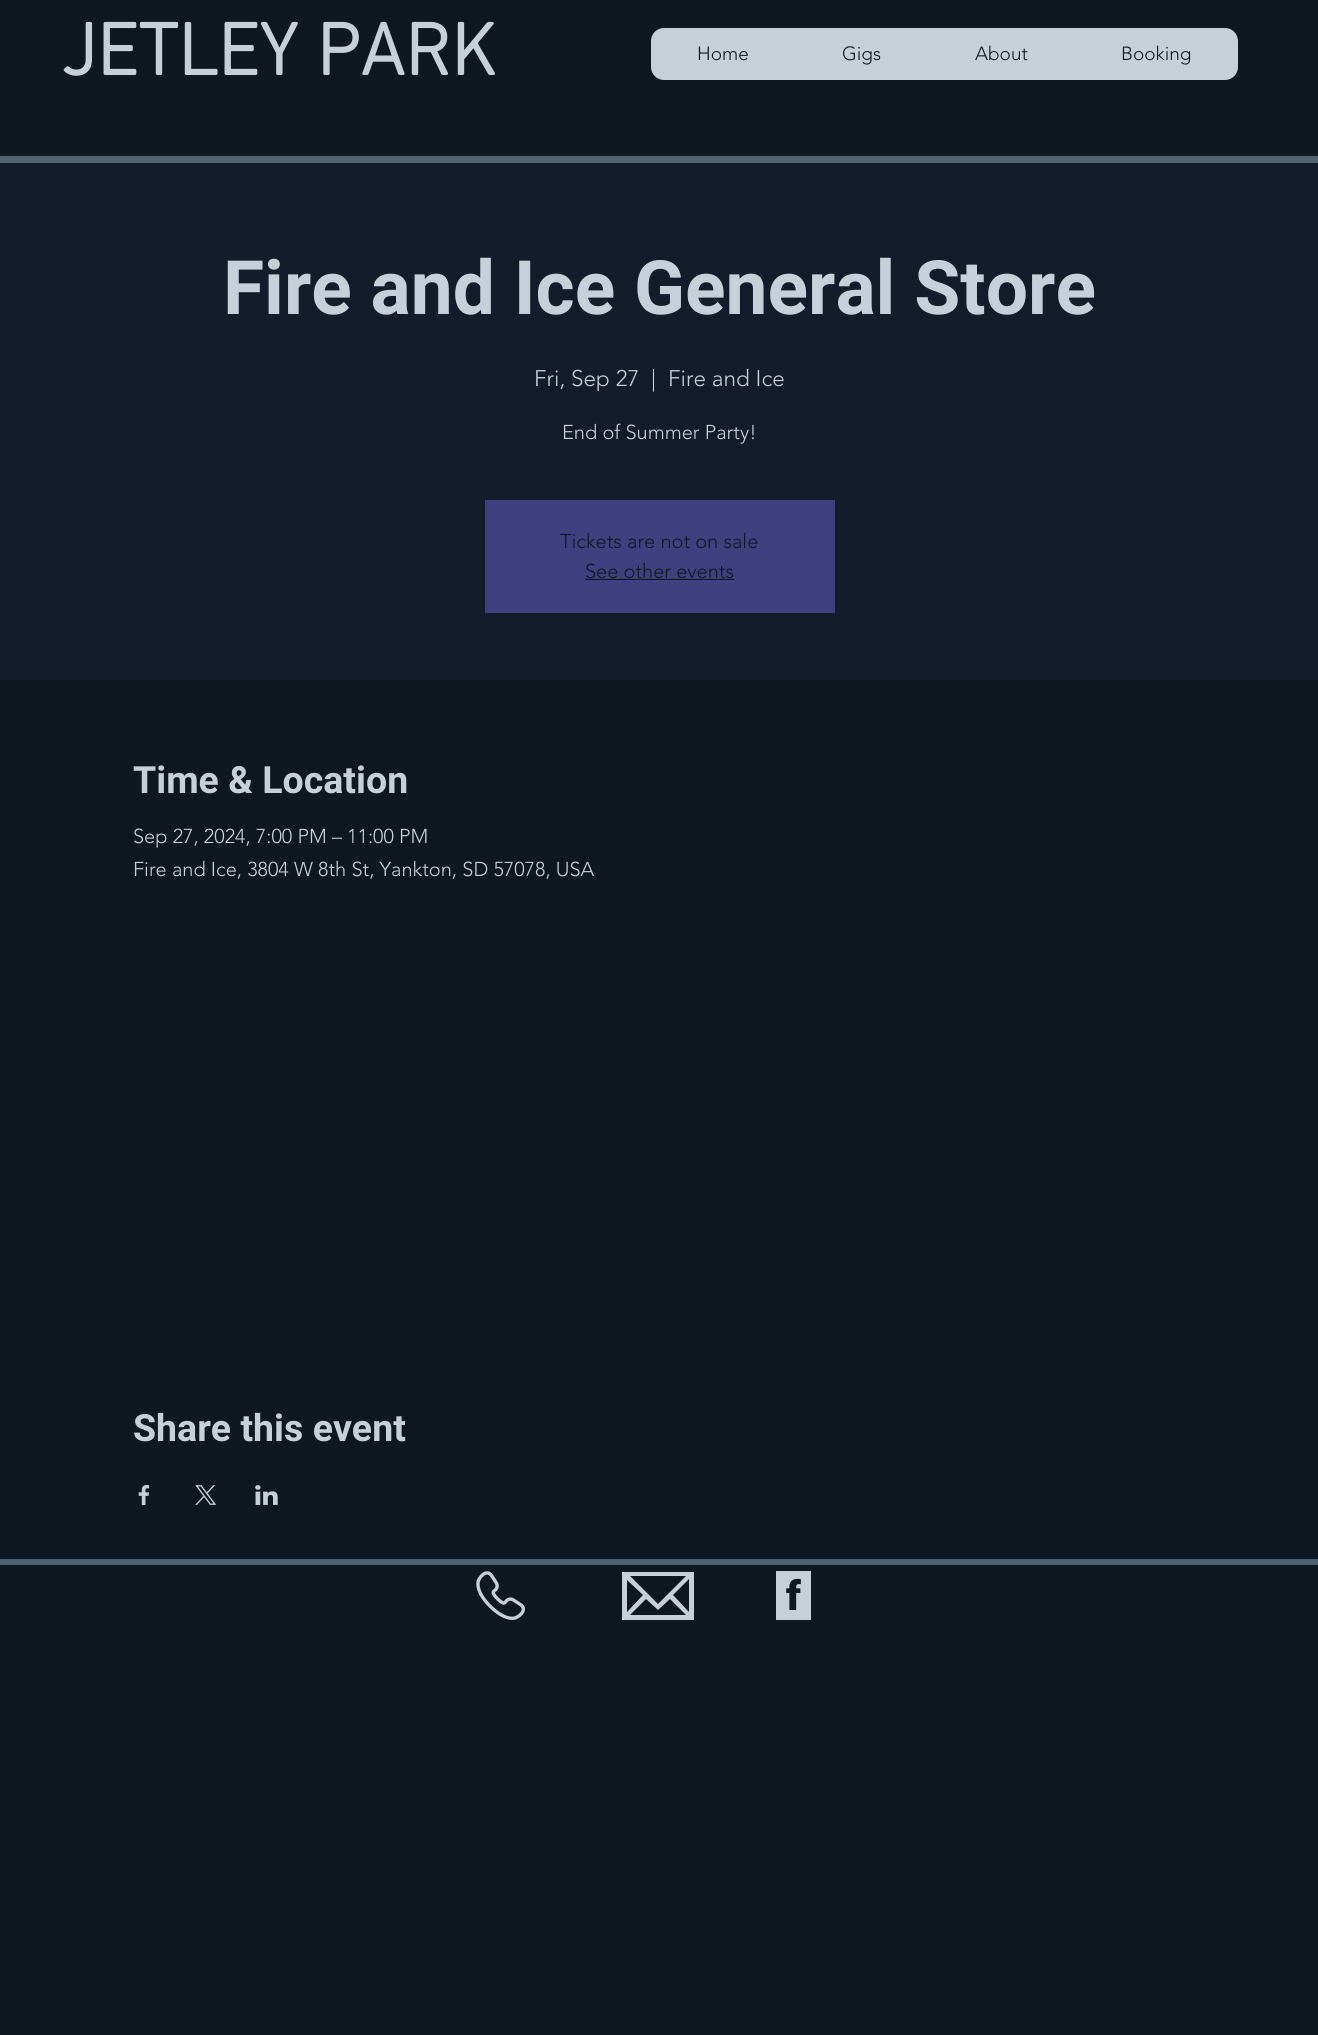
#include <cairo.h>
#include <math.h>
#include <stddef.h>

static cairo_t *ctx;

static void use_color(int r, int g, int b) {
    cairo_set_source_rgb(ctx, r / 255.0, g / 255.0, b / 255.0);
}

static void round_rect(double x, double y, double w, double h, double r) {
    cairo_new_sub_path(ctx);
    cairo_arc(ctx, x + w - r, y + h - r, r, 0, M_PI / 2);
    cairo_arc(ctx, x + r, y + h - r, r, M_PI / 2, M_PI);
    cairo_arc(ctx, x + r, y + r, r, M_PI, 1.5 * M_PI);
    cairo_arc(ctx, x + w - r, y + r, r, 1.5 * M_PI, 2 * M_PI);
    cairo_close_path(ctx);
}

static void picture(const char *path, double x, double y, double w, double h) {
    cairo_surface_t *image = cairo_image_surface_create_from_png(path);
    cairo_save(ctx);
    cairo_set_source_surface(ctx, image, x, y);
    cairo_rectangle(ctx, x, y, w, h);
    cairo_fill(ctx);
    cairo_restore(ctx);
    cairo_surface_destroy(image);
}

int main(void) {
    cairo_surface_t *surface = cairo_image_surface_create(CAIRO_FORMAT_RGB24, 1318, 2035);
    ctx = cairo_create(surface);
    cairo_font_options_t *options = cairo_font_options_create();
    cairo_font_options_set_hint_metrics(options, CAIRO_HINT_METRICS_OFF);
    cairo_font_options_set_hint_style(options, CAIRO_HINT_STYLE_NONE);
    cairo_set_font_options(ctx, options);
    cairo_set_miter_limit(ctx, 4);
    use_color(14, 24, 33);
    cairo_paint(ctx);
    cairo_select_font_face(ctx, "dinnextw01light", CAIRO_FONT_SLANT_NORMAL, CAIRO_FONT_WEIGHT_BOLD);
    cairo_set_font_size(ctx, 75);
    use_color(197, 208, 217);
    cairo_move_to(ctx, 61, 75);
    cairo_show_text(ctx, "JETLEY PARK");
    round_rect(651, 28, 587, 52, 13);
    cairo_fill(ctx);
    cairo_select_font_face(ctx, "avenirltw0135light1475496 Light", CAIRO_FONT_SLANT_NORMAL, CAIRO_FONT_WEIGHT_NORMAL);
    cairo_set_font_size(ctx, 19);
    use_color(14, 24, 33);
    cairo_move_to(ctx, 697, 60);
    cairo_show_text(ctx, "Home");
    cairo_move_to(ctx, 842, 60);
    cairo_show_text(ctx, "Gigs");
    cairo_move_to(ctx, 975, 60);
    cairo_show_text(ctx, "About");
    cairo_move_to(ctx, 1121, 60);
    cairo_show_text(ctx, "Booking");
    use_color(81, 99, 113);
    cairo_rectangle(ctx, 0, 156, 1318, 7);
    cairo_fill(ctx);
    use_color(19, 28, 42);
    cairo_rectangle(ctx, 0, 163, 1318, 517);
    cairo_fill(ctx);
    cairo_select_font_face(ctx, "Roboto", CAIRO_FONT_SLANT_NORMAL, CAIRO_FONT_WEIGHT_BOLD);
    cairo_set_font_size(ctx, 75);
    use_color(197, 208, 217);
    cairo_move_to(ctx, 223, 314);
    cairo_show_text(ctx, "Fire and Ice General Store");
    cairo_select_font_face(ctx, "avenirltw0135light1475496 Light", CAIRO_FONT_SLANT_NORMAL, CAIRO_FONT_WEIGHT_NORMAL);
    cairo_set_font_size(ctx, 22.5);
    cairo_move_to(ctx, 534, 386);
    cairo_show_text(ctx, "Fri, Sep 27");
    cairo_move_to(ctx, 651, 386);
    cairo_show_text(ctx, "|");
    cairo_move_to(ctx, 668, 386);
    cairo_show_text(ctx, "Fire and Ice");
    cairo_set_font_size(ctx, 20);
    cairo_move_to(ctx, 562, 439);
    cairo_show_text(ctx, "End of Summer Party!");
    use_color(64, 64, 128);
    cairo_rectangle(ctx, 485, 500, 350, 113);
    cairo_fill(ctx);
    use_color(14, 24, 33);
    cairo_move_to(ctx, 560, 548);
    cairo_show_text(ctx, "Tickets are not on sale");
    cairo_move_to(ctx, 585, 578);
    cairo_show_text(ctx, "See other events");
    cairo_rectangle(ctx, 585, 579, 149, 1);
    cairo_fill(ctx);
    cairo_select_font_face(ctx, "Roboto", CAIRO_FONT_SLANT_NORMAL, CAIRO_FONT_WEIGHT_BOLD);
    cairo_set_font_size(ctx, 37.5);
    use_color(197, 208, 217);
    cairo_move_to(ctx, 133, 793);
    cairo_show_text(ctx, "Time & Location");
    cairo_select_font_face(ctx, "avenirltw0135light1475496 Light", CAIRO_FONT_SLANT_NORMAL, CAIRO_FONT_WEIGHT_NORMAL);
    cairo_set_font_size(ctx, 20);
    cairo_move_to(ctx, 133, 843);
    cairo_show_text(ctx, "Sep 27, 2024, 7:00 PM – 11:00 PM");
    cairo_move_to(ctx, 133, 876);
    cairo_show_text(ctx, "Fire and Ice, 3804 W 8th St, Yankton, SD 57078, USA");
    cairo_select_font_face(ctx, "Roboto", CAIRO_FONT_SLANT_NORMAL, CAIRO_FONT_WEIGHT_BOLD);
    cairo_set_font_size(ctx, 37.5);
    cairo_move_to(ctx, 133, 1441);
    cairo_show_text(ctx, "Share this event");
    picture("img1.png", 138, 1485, 12, 20);
    picture("img2.png", 195, 1485, 22, 20);
    picture("img3.png", 255, 1485, 23, 20);
    use_color(81, 99, 113);
    cairo_rectangle(ctx, 0, 1559, 1318, 6);
    cairo_fill(ctx);
    picture("img4.png", 476, 1571, 49, 49);
    use_color(197, 208, 217);
    cairo_new_path(ctx);
    cairo_move_to(ctx, 622, 1572);
    cairo_line_to(ctx, 622, 1620);
    cairo_line_to(ctx, 694, 1620);
    cairo_line_to(ctx, 694, 1572);
    cairo_close_path(ctx);
    cairo_move_to(ctx, 658, 1604);
    cairo_line_to(ctx, 630, 1576);
    cairo_line_to(ctx, 686, 1576);
    cairo_close_path(ctx);
    cairo_move_to(ctx, 643, 1595);
    cairo_line_to(ctx, 627, 1612);
    cairo_line_to(ctx, 627, 1580);
    cairo_close_path(ctx);
    cairo_move_to(ctx, 646, 1599);
    cairo_line_to(ctx, 658, 1610);
    cairo_line_to(ctx, 670, 1599);
    cairo_line_to(ctx, 686, 1615);
    cairo_line_to(ctx, 630, 1615);
    cairo_close_path(ctx);
    cairo_move_to(ctx, 673, 1595);
    cairo_line_to(ctx, 689, 1579);
    cairo_line_to(ctx, 689, 1612);
    cairo_close_path(ctx);
    cairo_fill(ctx);
    cairo_rectangle(ctx, 776, 1571, 35, 49);
    cairo_fill(ctx);
    cairo_select_font_face(ctx, "Roboto Black", CAIRO_FONT_SLANT_NORMAL, CAIRO_FONT_WEIGHT_NORMAL);
    cairo_set_font_size(ctx, 41);
    use_color(14, 24, 33);
    cairo_move_to(ctx, 786, 1610);
    cairo_show_text(ctx, "f");
    cairo_surface_write_to_png(surface, "result.png");
    cairo_font_options_destroy(options);
    cairo_destroy(ctx);
    cairo_surface_destroy(surface);
    return 0;
}
